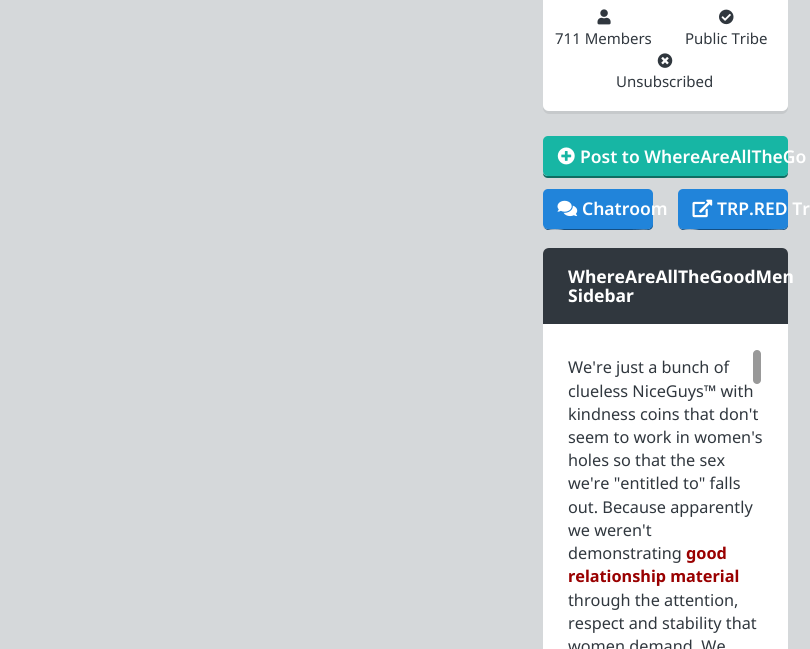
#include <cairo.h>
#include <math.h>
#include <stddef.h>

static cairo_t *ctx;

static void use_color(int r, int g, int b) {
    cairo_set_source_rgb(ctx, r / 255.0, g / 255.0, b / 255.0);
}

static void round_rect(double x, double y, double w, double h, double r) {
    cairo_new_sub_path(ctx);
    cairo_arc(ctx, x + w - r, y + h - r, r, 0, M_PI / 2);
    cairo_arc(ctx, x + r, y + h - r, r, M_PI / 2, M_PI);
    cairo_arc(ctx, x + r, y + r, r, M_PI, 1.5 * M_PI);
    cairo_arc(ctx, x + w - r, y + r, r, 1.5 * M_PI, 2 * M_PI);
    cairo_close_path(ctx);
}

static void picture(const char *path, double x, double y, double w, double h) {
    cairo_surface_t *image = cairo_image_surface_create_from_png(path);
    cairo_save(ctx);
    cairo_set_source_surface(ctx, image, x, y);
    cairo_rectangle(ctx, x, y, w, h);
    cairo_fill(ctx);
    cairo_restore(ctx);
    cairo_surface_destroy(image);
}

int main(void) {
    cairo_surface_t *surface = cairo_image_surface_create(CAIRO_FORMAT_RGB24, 810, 649);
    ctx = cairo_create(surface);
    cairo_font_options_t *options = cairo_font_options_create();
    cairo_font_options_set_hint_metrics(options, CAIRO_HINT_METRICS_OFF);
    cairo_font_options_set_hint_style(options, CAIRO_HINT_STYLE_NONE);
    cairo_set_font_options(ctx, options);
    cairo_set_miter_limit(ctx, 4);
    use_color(213, 216, 218);
    cairo_paint(ctx);
    use_color(198, 201, 203);
    cairo_new_path(ctx);
    cairo_move_to(ctx, 543, 107);
    cairo_line_to(ctx, 543, 108);
    cairo_curve_to(ctx, 543, 111, 546, 114, 549, 114);
    cairo_line_to(ctx, 782, 114);
    cairo_curve_to(ctx, 785, 114, 788, 111, 788, 108);
    cairo_line_to(ctx, 788, -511);
    cairo_line_to(ctx, 788, -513);
    cairo_line_to(ctx, 788, 105);
    cairo_curve_to(ctx, 788, 108, 785, 111, 781, 111);
    cairo_line_to(ctx, 549, 111);
    cairo_curve_to(ctx, 546, 111, 544, 110, 543, 107);
    cairo_close_path(ctx);
    cairo_fill(ctx);
    use_color(255, 255, 255);
    round_rect(543, -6, 245, 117, 6);
    cairo_fill(ctx);
    picture("img1.png", 597, 9, 14, 16);
    cairo_select_font_face(ctx, "Noto Sans", CAIRO_FONT_SLANT_NORMAL, CAIRO_FONT_WEIGHT_NORMAL);
    cairo_set_font_size(ctx, 15);
    use_color(48, 55, 62);
    cairo_move_to(ctx, 555, 44);
    cairo_show_text(ctx, "711 Members");
    picture("img2.png", 719, 9, 15, 16);
    cairo_move_to(ctx, 685, 44);
    cairo_show_text(ctx, "Public Tribe");
    picture("img3.png", 657, 53, 16, 15);
    cairo_move_to(ctx, 616, 87);
    cairo_show_text(ctx, "Unsubscribed");
    use_color(14, 109, 98);
    cairo_new_path(ctx);
    cairo_move_to(ctx, 543, 173);
    cairo_curve_to(ctx, 543, 176, 545, 178, 548, 178);
    cairo_line_to(ctx, 783, 178);
    cairo_curve_to(ctx, 786, 178, 788, 176, 788, 173);
    cairo_line_to(ctx, 788, 143);
    cairo_line_to(ctx, 787, 141);
    cairo_line_to(ctx, 788, 171);
    cairo_curve_to(ctx, 788, 174, 785, 176, 782, 176);
    cairo_line_to(ctx, 548, 176);
    cairo_curve_to(ctx, 546, 176, 544, 175, 543, 173);
    cairo_close_path(ctx);
    cairo_fill(ctx);
    use_color(23, 182, 164);
    round_rect(543, 136, 245, 40, 5);
    cairo_fill(ctx);
    picture("img4.png", 557, 147, 18, 18);
    cairo_select_font_face(ctx, "Noto Sans SemiBold", CAIRO_FONT_SLANT_NORMAL, CAIRO_FONT_WEIGHT_NORMAL);
    cairo_set_font_size(ctx, 17.5);
    use_color(255, 255, 255);
    cairo_move_to(ctx, 580, 163);
    cairo_show_text(ctx, "Post to WhereAreAllTheGo");
    use_color(20, 79, 131);
    cairo_new_path(ctx);
    cairo_move_to(ctx, 543, 226);
    cairo_curve_to(ctx, 544, 228, 546, 230, 548, 230);
    cairo_line_to(ctx, 648, 230);
    cairo_curve_to(ctx, 651, 230, 653, 228, 653, 225);
    cairo_line_to(ctx, 653, 195);
    cairo_line_to(ctx, 652, 193);
    cairo_line_to(ctx, 652, 214);
    cairo_curve_to(ctx, 652, 233, 652, 229, 631, 229);
    cairo_line_to(ctx, 564, 229);
    cairo_curve_to(ctx, 564, 229, 546, 232, 543, 226);
    cairo_close_path(ctx);
    cairo_fill(ctx);
    use_color(33, 132, 218);
    round_rect(543, 189, 110, 40, 5);
    cairo_fill(ctx);
    picture("img5.png", 557, 200, 21, 17);
    use_color(255, 255, 255);
    cairo_move_to(ctx, 582, 215);
    cairo_show_text(ctx, "Chatroom");
    use_color(20, 79, 131);
    cairo_new_path(ctx);
    cairo_move_to(ctx, 678, 226);
    cairo_curve_to(ctx, 679, 228, 681, 230, 683, 230);
    cairo_line_to(ctx, 783, 230);
    cairo_curve_to(ctx, 786, 230, 788, 228, 788, 225);
    cairo_line_to(ctx, 788, 195);
    cairo_line_to(ctx, 787, 193);
    cairo_line_to(ctx, 788, 214);
    cairo_curve_to(ctx, 788, 233, 787, 229, 766, 229);
    cairo_line_to(ctx, 699, 229);
    cairo_curve_to(ctx, 699, 229, 681, 232, 678, 226);
    cairo_close_path(ctx);
    cairo_fill(ctx);
    use_color(33, 132, 218);
    round_rect(678, 189, 110, 40, 5);
    cairo_fill(ctx);
    picture("img6.png", 692, 199, 21, 19);
    use_color(255, 255, 255);
    cairo_move_to(ctx, 717, 215);
    cairo_show_text(ctx, "TRP.RED Tr");
    round_rect(543, 248, 245, 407, 6);
    cairo_fill(ctx);
    use_color(48, 55, 62);
    cairo_new_path(ctx);
    cairo_move_to(ctx, 549, 248);
    cairo_line_to(ctx, 782, 248);
    cairo_curve_to(ctx, 785.5, 248, 788, 250.5, 788, 254);
    cairo_line_to(ctx, 788, 324);
    cairo_line_to(ctx, 543, 324);
    cairo_line_to(ctx, 543, 254);
    cairo_curve_to(ctx, 543, 250.5, 545.5, 248, 549, 248);
    cairo_close_path(ctx);
    cairo_fill(ctx);
    cairo_select_font_face(ctx, "Noto Sans", CAIRO_FONT_SLANT_NORMAL, CAIRO_FONT_WEIGHT_BOLD);
    use_color(255, 255, 255);
    cairo_move_to(ctx, 568, 283);
    cairo_show_text(ctx, "WhereAreAllTheGoodMen");
    cairo_move_to(ctx, 568, 302);
    cairo_show_text(ctx, "Sidebar");
    use_color(153, 153, 153);
    round_rect(753, 350, 8, 34, 4);
    cairo_fill(ctx);
    cairo_select_font_face(ctx, "Noto Sans", CAIRO_FONT_SLANT_NORMAL, CAIRO_FONT_WEIGHT_NORMAL);
    cairo_set_font_size(ctx, 16.25);
    use_color(48, 55, 62);
    cairo_move_to(ctx, 568, 373);
    cairo_show_text(ctx, "We're just a bunch of");
    cairo_move_to(ctx, 568, 397);
    cairo_show_text(ctx, "clueless NiceGuys™ with");
    cairo_move_to(ctx, 568, 420);
    cairo_show_text(ctx, "kindness coins that don't");
    cairo_move_to(ctx, 568, 443);
    cairo_show_text(ctx, "seem to work in women's");
    cairo_move_to(ctx, 568, 466);
    cairo_show_text(ctx, "holes so that the sex");
    cairo_move_to(ctx, 568, 489);
    cairo_show_text(ctx, "we're \"entitled to\" falls");
    cairo_move_to(ctx, 568, 513);
    cairo_show_text(ctx, "out. Because apparently");
    cairo_move_to(ctx, 568, 536);
    cairo_show_text(ctx, "we weren't");
    cairo_move_to(ctx, 568, 559);
    cairo_show_text(ctx, "demonstrating");
    cairo_select_font_face(ctx, "Noto Sans", CAIRO_FONT_SLANT_NORMAL, CAIRO_FONT_WEIGHT_BOLD);
    use_color(153, 0, 0);
    cairo_move_to(ctx, 686, 559);
    cairo_show_text(ctx, "good");
    cairo_move_to(ctx, 568, 582);
    cairo_show_text(ctx, "relationship material");
    cairo_select_font_face(ctx, "Noto Sans", CAIRO_FONT_SLANT_NORMAL, CAIRO_FONT_WEIGHT_NORMAL);
    use_color(48, 55, 62);
    cairo_move_to(ctx, 568, 606);
    cairo_show_text(ctx, "through the attention,");
    cairo_move_to(ctx, 568, 629);
    cairo_show_text(ctx, "respect and stability that");
    cairo_move_to(ctx, 568, 652);
    cairo_show_text(ctx, "women demand. We");
    cairo_surface_write_to_png(surface, "result.png");
    cairo_font_options_destroy(options);
    cairo_destroy(ctx);
    cairo_surface_destroy(surface);
    return 0;
}
